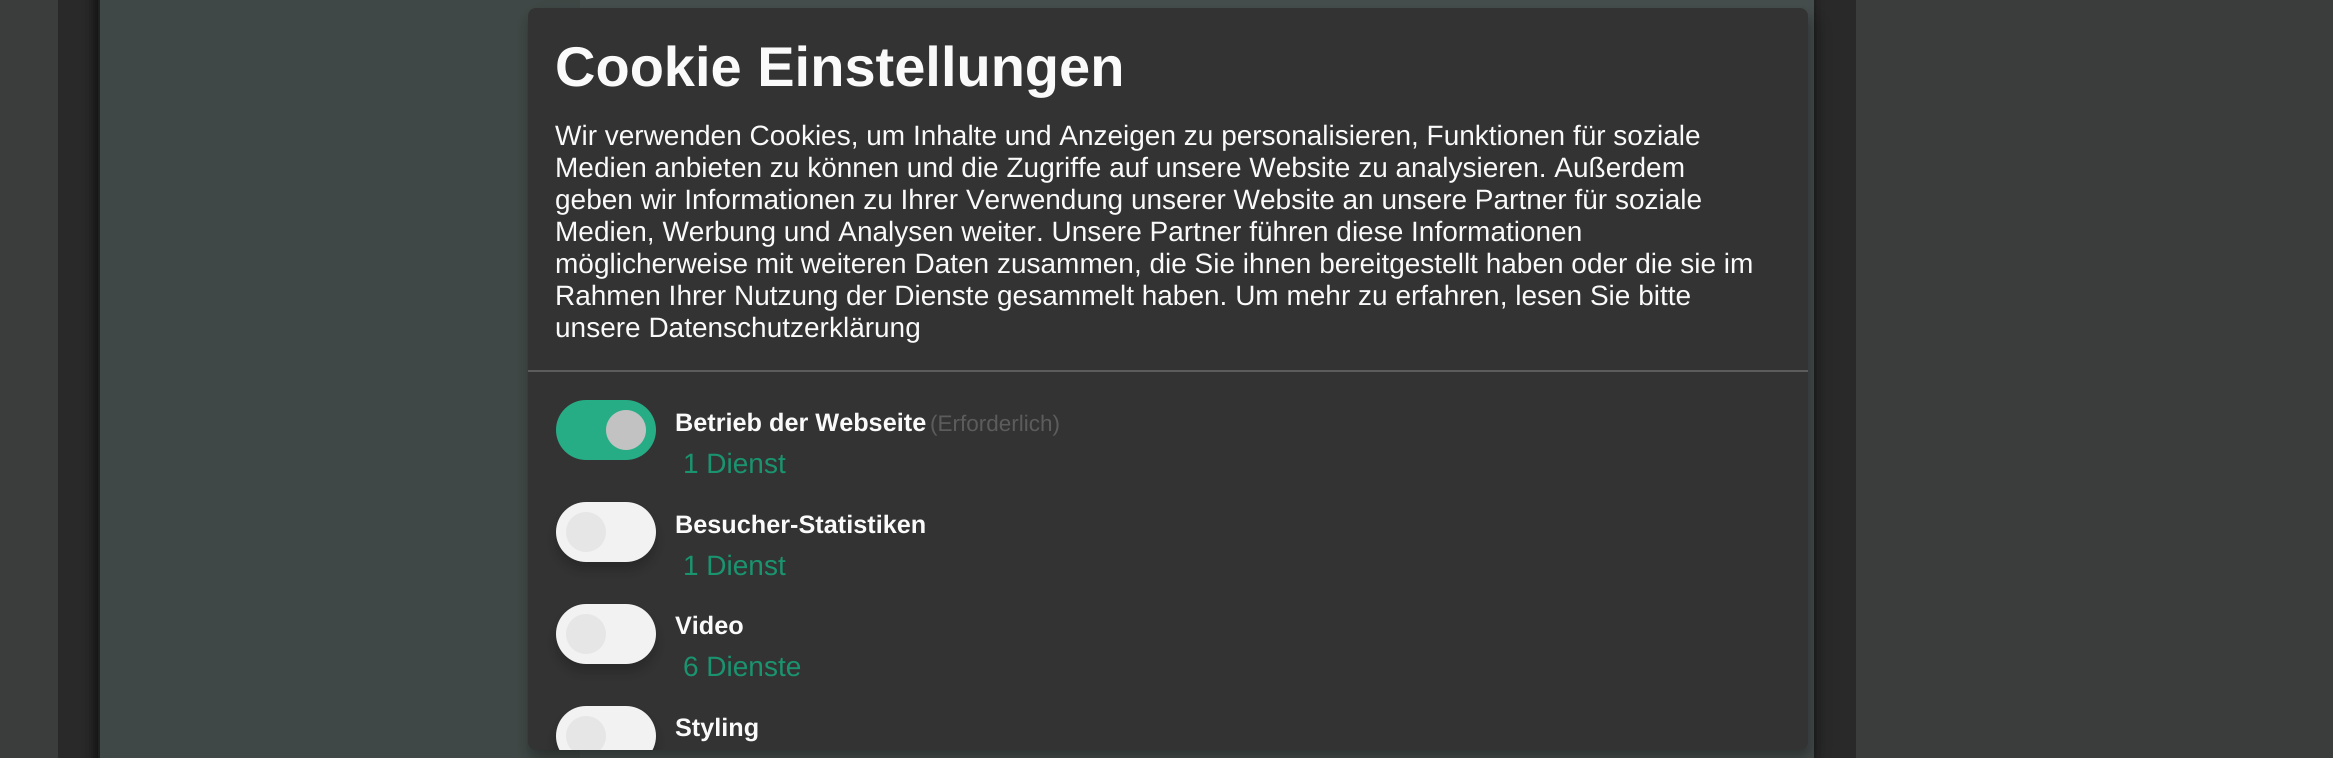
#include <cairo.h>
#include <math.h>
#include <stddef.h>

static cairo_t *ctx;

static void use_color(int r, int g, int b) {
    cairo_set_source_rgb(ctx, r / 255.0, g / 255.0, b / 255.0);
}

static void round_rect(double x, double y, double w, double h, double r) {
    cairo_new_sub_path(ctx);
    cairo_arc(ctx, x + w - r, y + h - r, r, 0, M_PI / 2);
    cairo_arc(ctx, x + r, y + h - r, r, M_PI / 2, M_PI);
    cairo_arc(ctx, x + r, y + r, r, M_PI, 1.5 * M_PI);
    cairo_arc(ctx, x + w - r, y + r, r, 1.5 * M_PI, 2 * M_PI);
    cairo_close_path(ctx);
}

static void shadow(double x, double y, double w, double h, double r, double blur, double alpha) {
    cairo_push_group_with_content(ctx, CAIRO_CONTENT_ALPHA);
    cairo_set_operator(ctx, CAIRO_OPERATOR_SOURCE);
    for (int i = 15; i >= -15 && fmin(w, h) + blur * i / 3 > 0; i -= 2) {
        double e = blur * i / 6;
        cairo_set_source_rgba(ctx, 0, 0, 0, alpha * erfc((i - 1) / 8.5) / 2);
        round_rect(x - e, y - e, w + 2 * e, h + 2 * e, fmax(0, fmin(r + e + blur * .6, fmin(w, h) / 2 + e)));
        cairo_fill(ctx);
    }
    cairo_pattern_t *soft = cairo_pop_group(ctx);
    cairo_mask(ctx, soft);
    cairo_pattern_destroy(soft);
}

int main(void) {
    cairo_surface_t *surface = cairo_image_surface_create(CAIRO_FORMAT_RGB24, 2333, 758);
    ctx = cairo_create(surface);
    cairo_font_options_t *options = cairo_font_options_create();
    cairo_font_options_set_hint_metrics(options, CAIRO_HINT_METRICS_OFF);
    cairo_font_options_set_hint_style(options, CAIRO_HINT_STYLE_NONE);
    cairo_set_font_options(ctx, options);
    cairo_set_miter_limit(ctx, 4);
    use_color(59, 60, 60);
    cairo_paint(ctx);
    use_color(41, 41, 41);
    cairo_rectangle(ctx, 58, 0, 1798, 758);
    cairo_fill(ctx);
    use_color(16, 16, 16);
    shadow(94, -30, 1718, 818, 12, 6, 1);
    cairo_rectangle(ctx, 99, -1, 1716, 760);
    use_color(30, 34, 33);
    cairo_stroke(ctx);
    use_color(70, 78, 77);
    cairo_rectangle(ctx, 580, 0, 1234, 758);
    cairo_fill(ctx);
    use_color(63, 72, 70);
    cairo_rectangle(ctx, 100, 0, 480, 758);
    cairo_fill(ctx);
    use_color(0, 0, 0);
    shadow(538, 18, 1280, 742, 8, 10, 0.19);
    shadow(528, 16, 1280, 742, 8, 6, 0.2);
    use_color(51, 51, 51);
    round_rect(528, 8, 1280, 742, 8);
    cairo_fill(ctx);
    use_color(92, 92, 92);
    cairo_rectangle(ctx, 528, 370, 1280, 2);
    cairo_fill(ctx);
    cairo_select_font_face(ctx, "Liberation Sans", CAIRO_FONT_SLANT_NORMAL, CAIRO_FONT_WEIGHT_BOLD);
    cairo_set_font_size(ctx, 56);
    use_color(250, 250, 250);
    cairo_move_to(ctx, 555, 86);
    cairo_show_text(ctx, "Cookie Einstellungen");
    cairo_select_font_face(ctx, "Liberation Sans", CAIRO_FONT_SLANT_NORMAL, CAIRO_FONT_WEIGHT_NORMAL);
    cairo_set_font_size(ctx, 28);
    cairo_move_to(ctx, 555, 145);
    cairo_show_text(ctx, "Wir verwenden Cookies, um Inhalte und Anzeigen zu personalisieren, Funktionen für soziale");
    cairo_move_to(ctx, 555, 177);
    cairo_show_text(ctx, "Medien anbieten zu können und die Zugriffe auf unsere Website zu analysieren. Außerdem");
    cairo_move_to(ctx, 555, 209);
    cairo_show_text(ctx, "geben wir Informationen zu Ihrer Verwendung unserer Website an unsere Partner für soziale");
    cairo_move_to(ctx, 555, 241);
    cairo_show_text(ctx, "Medien, Werbung und Analysen weiter. Unsere Partner führen diese Informationen");
    cairo_move_to(ctx, 555, 273);
    cairo_show_text(ctx, "möglicherweise mit weiteren Daten zusammen, die Sie ihnen bereitgestellt haben oder die sie im");
    cairo_move_to(ctx, 555, 305);
    cairo_show_text(ctx, "Rahmen Ihrer Nutzung der Dienste gesammelt haben. Um mehr zu erfahren, lesen Sie bitte");
    cairo_move_to(ctx, 555, 337);
    cairo_show_text(ctx, "unsere Datenschutzerklärung");
    use_color(39, 173, 133);
    round_rect(556, 400, 100, 60, 30);
    cairo_fill(ctx);
    use_color(194, 194, 194);
    cairo_arc(ctx, 626, 430, 20, 0, 2 * M_PI);
    cairo_fill(ctx);
    cairo_select_font_face(ctx, "Liberation Sans", CAIRO_FONT_SLANT_NORMAL, CAIRO_FONT_WEIGHT_BOLD);
    cairo_set_font_size(ctx, 25.25);
    use_color(250, 250, 250);
    cairo_move_to(ctx, 675, 431);
    cairo_show_text(ctx, "Betrieb der Webseite");
    cairo_select_font_face(ctx, "Liberation Sans", CAIRO_FONT_SLANT_NORMAL, CAIRO_FONT_WEIGHT_NORMAL);
    cairo_set_font_size(ctx, 22.5);
    use_color(92, 92, 92);
    cairo_move_to(ctx, 930, 431);
    cairo_show_text(ctx, "(Erforderlich)");
    cairo_set_font_size(ctx, 28);
    use_color(26, 147, 111);
    cairo_move_to(ctx, 683, 473);
    cairo_show_text(ctx, "1 Dienst");
    use_color(0, 0, 0);
    shadow(556, 510, 100, 60, 30, 6, 0.2);
    use_color(242, 242, 242);
    round_rect(556, 502, 100, 60, 30);
    cairo_fill(ctx);
    use_color(230, 230, 230);
    cairo_arc(ctx, 586, 532, 20, 0, 2 * M_PI);
    cairo_fill(ctx);
    cairo_select_font_face(ctx, "Liberation Sans", CAIRO_FONT_SLANT_NORMAL, CAIRO_FONT_WEIGHT_BOLD);
    cairo_set_font_size(ctx, 25.25);
    use_color(250, 250, 250);
    cairo_move_to(ctx, 675, 533);
    cairo_show_text(ctx, "Besucher-Statistiken");
    cairo_select_font_face(ctx, "Liberation Sans", CAIRO_FONT_SLANT_NORMAL, CAIRO_FONT_WEIGHT_NORMAL);
    cairo_set_font_size(ctx, 28);
    use_color(26, 147, 111);
    cairo_move_to(ctx, 683, 575);
    cairo_show_text(ctx, "1 Dienst");
    use_color(0, 0, 0);
    shadow(556, 612, 100, 60, 30, 6, 0.2);
    use_color(242, 242, 242);
    round_rect(556, 604, 100, 60, 30);
    cairo_fill(ctx);
    use_color(230, 230, 230);
    cairo_arc(ctx, 586, 634, 20, 0, 2 * M_PI);
    cairo_fill(ctx);
    cairo_select_font_face(ctx, "Liberation Sans", CAIRO_FONT_SLANT_NORMAL, CAIRO_FONT_WEIGHT_BOLD);
    cairo_set_font_size(ctx, 25.25);
    use_color(250, 250, 250);
    cairo_move_to(ctx, 675, 634);
    cairo_show_text(ctx, "Video");
    cairo_select_font_face(ctx, "Liberation Sans", CAIRO_FONT_SLANT_NORMAL, CAIRO_FONT_WEIGHT_NORMAL);
    cairo_set_font_size(ctx, 28);
    use_color(26, 147, 111);
    cairo_move_to(ctx, 683, 676);
    cairo_show_text(ctx, "6 Dienste");
    cairo_save(ctx);
    round_rect(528, 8, 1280, 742, 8);
    cairo_clip(ctx);
    use_color(0, 0, 0);
    shadow(556, 714, 100, 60, 30, 6, 0.2);
    cairo_restore(ctx);
    cairo_save(ctx);
    round_rect(528, 8, 1280, 742, 8);
    cairo_clip(ctx);
    use_color(242, 242, 242);
    round_rect(556, 706, 100, 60, 30);
    cairo_fill(ctx);
    use_color(230, 230, 230);
    cairo_arc(ctx, 586, 736, 20, 0, 2 * M_PI);
    cairo_fill(ctx);
    cairo_restore(ctx);
    cairo_select_font_face(ctx, "Liberation Sans", CAIRO_FONT_SLANT_NORMAL, CAIRO_FONT_WEIGHT_BOLD);
    cairo_set_font_size(ctx, 25.25);
    use_color(250, 250, 250);
    cairo_move_to(ctx, 675, 736);
    cairo_show_text(ctx, "Styling");
    cairo_surface_write_to_png(surface, "result.png");
    cairo_font_options_destroy(options);
    cairo_destroy(ctx);
    cairo_surface_destroy(surface);
    return 0;
}
